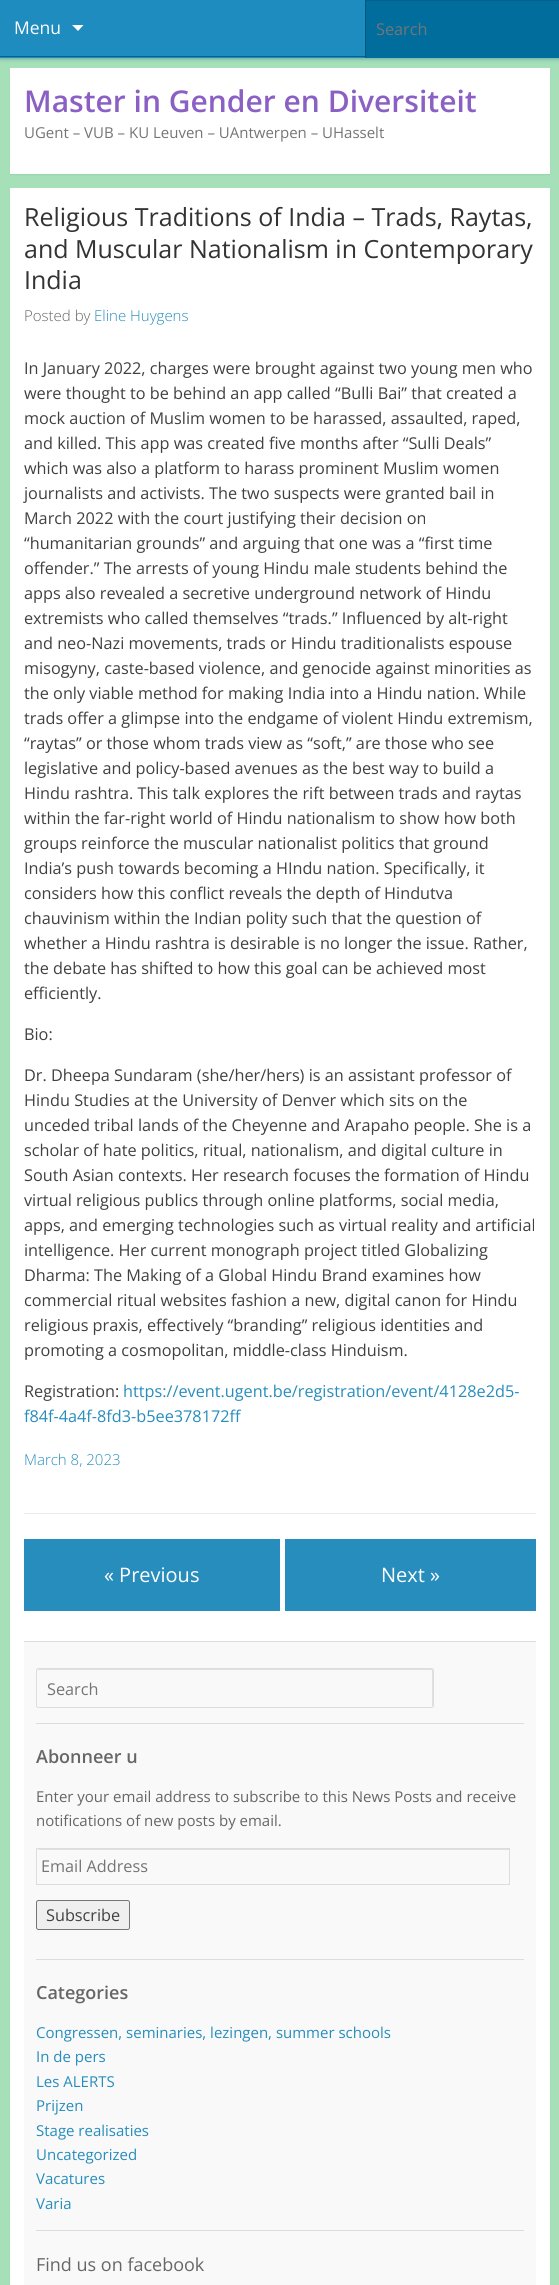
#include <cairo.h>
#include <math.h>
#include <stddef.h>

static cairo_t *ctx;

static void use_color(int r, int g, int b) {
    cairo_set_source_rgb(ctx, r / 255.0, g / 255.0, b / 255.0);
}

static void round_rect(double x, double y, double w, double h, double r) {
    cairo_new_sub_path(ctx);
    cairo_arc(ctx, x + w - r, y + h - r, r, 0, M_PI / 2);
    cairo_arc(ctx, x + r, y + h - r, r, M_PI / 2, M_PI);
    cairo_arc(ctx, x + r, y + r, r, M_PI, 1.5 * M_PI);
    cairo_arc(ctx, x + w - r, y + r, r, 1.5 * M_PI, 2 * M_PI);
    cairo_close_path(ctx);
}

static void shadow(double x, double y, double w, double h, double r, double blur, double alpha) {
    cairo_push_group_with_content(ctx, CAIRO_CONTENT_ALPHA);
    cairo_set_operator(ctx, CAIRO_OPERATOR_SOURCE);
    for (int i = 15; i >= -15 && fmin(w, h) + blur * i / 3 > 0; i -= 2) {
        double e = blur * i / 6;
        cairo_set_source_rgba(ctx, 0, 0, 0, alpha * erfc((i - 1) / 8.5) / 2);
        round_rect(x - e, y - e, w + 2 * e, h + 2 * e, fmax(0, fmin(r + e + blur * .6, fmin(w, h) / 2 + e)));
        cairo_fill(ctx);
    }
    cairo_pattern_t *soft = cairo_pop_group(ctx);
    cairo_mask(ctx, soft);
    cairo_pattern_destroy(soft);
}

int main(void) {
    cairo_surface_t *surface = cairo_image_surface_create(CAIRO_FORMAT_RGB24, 559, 2285);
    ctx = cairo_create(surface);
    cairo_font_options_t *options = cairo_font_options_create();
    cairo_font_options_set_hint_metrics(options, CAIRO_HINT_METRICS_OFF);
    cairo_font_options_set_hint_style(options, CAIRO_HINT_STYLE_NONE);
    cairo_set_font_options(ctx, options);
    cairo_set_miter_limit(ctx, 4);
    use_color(166, 224, 185);
    cairo_paint(ctx);
    use_color(0, 86, 132);
    shadow(0, 1, 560, 58, 0, 2, 0.4);
    use_color(30, 140, 190);
    cairo_rectangle(ctx, 0, 0, 365, 58);
    cairo_fill(ctx);
    use_color(6, 97, 144);
    cairo_rectangle(ctx, 0, 56, 365, 1);
    cairo_fill(ctx);
    cairo_select_font_face(ctx, "Open Sans", CAIRO_FONT_SLANT_NORMAL, CAIRO_FONT_WEIGHT_NORMAL);
    cairo_set_font_size(ctx, 17.5);
    use_color(255, 255, 255);
    cairo_move_to(ctx, 14, 34);
    cairo_show_text(ctx, "Menu");
    cairo_new_path(ctx);
    cairo_move_to(ctx, 72, 25);
    cairo_line_to(ctx, 78, 31);
    cairo_line_to(ctx, 83.5, 25);
    cairo_close_path(ctx);
    cairo_fill(ctx);
    use_color(0, 109, 157);
    cairo_rectangle(ctx, 366, 1, 193, 57);
    cairo_fill(ctx);
    use_color(0, 98, 141);
    cairo_rectangle(ctx, 366, 0, 193, 1);
    cairo_fill(ctx);
    use_color(0, 88, 127);
    cairo_rectangle(ctx, 365, 0, 1, 58);
    cairo_fill(ctx);
    cairo_set_font_size(ctx, 16.25);
    use_color(117, 117, 117);
    cairo_move_to(ctx, 376, 35);
    cairo_show_text(ctx, "Search");
    use_color(0, 0, 0);
    shadow(10, 69, 540, 106, 0, 1, 0.07);
    use_color(255, 255, 255);
    cairo_rectangle(ctx, 10, 68, 540, 106);
    cairo_fill(ctx);
    cairo_select_font_face(ctx, "Open Sans SemiBold", CAIRO_FONT_SLANT_NORMAL, CAIRO_FONT_WEIGHT_NORMAL);
    cairo_set_font_size(ctx, 30);
    use_color(139, 96, 196);
    cairo_move_to(ctx, 24, 112);
    cairo_show_text(ctx, "Master in Gender en Diversiteit");
    cairo_select_font_face(ctx, "Open Sans", CAIRO_FONT_SLANT_NORMAL, CAIRO_FONT_WEIGHT_NORMAL);
    cairo_set_font_size(ctx, 15);
    use_color(117, 117, 117);
    cairo_move_to(ctx, 24, 138);
    cairo_show_text(ctx, "UGent – VUB – KU Leuven – UAntwerpen – UHasselt");
    use_color(0, 0, 0);
    shadow(10, 189, 540, 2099, 0, 1, 0.07);
    use_color(255, 255, 255);
    cairo_rectangle(ctx, 10, 188, 540, 2097);
    cairo_fill(ctx);
    use_color(236, 236, 236);
    cairo_rectangle(ctx, 24, 1513, 512, 1);
    cairo_fill(ctx);
    cairo_set_font_size(ctx, 25);
    use_color(51, 51, 51);
    cairo_move_to(ctx, 24, 226);
    cairo_show_text(ctx, "Religious Traditions of India – Trads, Raytas,");
    cairo_move_to(ctx, 24, 258);
    cairo_show_text(ctx, "and Muscular Nationalism in Contemporary");
    cairo_move_to(ctx, 24, 289);
    cairo_show_text(ctx, "India");
    cairo_select_font_face(ctx, "Open Sans Light", CAIRO_FONT_SLANT_NORMAL, CAIRO_FONT_WEIGHT_NORMAL);
    cairo_set_font_size(ctx, 15);
    use_color(102, 102, 102);
    cairo_move_to(ctx, 24, 321);
    cairo_show_text(ctx, "Posted by");
    use_color(39, 141, 188);
    cairo_move_to(ctx, 94, 321);
    cairo_show_text(ctx, "Eline Huygens");
    cairo_select_font_face(ctx, "Open Sans", CAIRO_FONT_SLANT_NORMAL, CAIRO_FONT_WEIGHT_NORMAL);
    cairo_set_font_size(ctx, 16.25);
    use_color(64, 64, 64);
    cairo_move_to(ctx, 24, 374);
    cairo_show_text(ctx, "In January 2022, charges were brought against two young men who");
    cairo_move_to(ctx, 24, 399);
    cairo_show_text(ctx, "were thought to be behind an app called “Bulli Bai” that created a");
    cairo_move_to(ctx, 24, 424);
    cairo_show_text(ctx, "mock auction of Muslim women to be harassed, assaulted, raped,");
    cairo_move_to(ctx, 24, 449);
    cairo_show_text(ctx, "and killed. This app was created five months after “Sulli Deals”");
    cairo_move_to(ctx, 24, 474);
    cairo_show_text(ctx, "which was also a platform to harass prominent Muslim women");
    cairo_move_to(ctx, 24, 499);
    cairo_show_text(ctx, "journalists and activists. The two suspects were granted bail in");
    cairo_move_to(ctx, 24, 524);
    cairo_show_text(ctx, "March 2022 with the court justifying their decision on");
    cairo_move_to(ctx, 24, 549);
    cairo_show_text(ctx, "“humanitarian grounds” and arguing that one was a “first time");
    cairo_move_to(ctx, 24, 574);
    cairo_show_text(ctx, "offender.” The arrests of young Hindu male students behind the");
    cairo_move_to(ctx, 24, 599);
    cairo_show_text(ctx, "apps also revealed a secretive underground network of Hindu");
    cairo_move_to(ctx, 24, 624);
    cairo_show_text(ctx, "extremists who called themselves “trads.” Influenced by alt-right");
    cairo_move_to(ctx, 24, 649);
    cairo_show_text(ctx, "and neo-Nazi movements, trads or Hindu traditionalists espouse");
    cairo_move_to(ctx, 24, 674);
    cairo_show_text(ctx, "misogyny, caste-based violence, and genocide against minorities as");
    cairo_move_to(ctx, 24, 699);
    cairo_show_text(ctx, "the only viable method for making India into a Hindu nation. While");
    cairo_move_to(ctx, 24, 724);
    cairo_show_text(ctx, "trads offer a glimpse into the endgame of violent Hindu extremism,");
    cairo_move_to(ctx, 24, 749);
    cairo_show_text(ctx, "“raytas” or those whom trads view as “soft,” are those who see");
    cairo_move_to(ctx, 24, 774);
    cairo_show_text(ctx, "legislative and policy-based avenues as the best way to build a");
    cairo_move_to(ctx, 24, 799);
    cairo_show_text(ctx, "Hindu rashtra. This talk explores the rift between trads and raytas");
    cairo_move_to(ctx, 24, 824);
    cairo_show_text(ctx, "within the far-right world of Hindu nationalism to show how both");
    cairo_move_to(ctx, 24, 849);
    cairo_show_text(ctx, "groups reinforce the muscular nationalist politics that ground");
    cairo_move_to(ctx, 24, 874);
    cairo_show_text(ctx, "India’s push towards becoming a HIndu nation. Specifically, it");
    cairo_move_to(ctx, 24, 899);
    cairo_show_text(ctx, "considers how this conflict reveals the depth of Hindutva");
    cairo_move_to(ctx, 24, 924);
    cairo_show_text(ctx, "chauvinism within the Indian polity such that the question of");
    cairo_move_to(ctx, 24, 949);
    cairo_show_text(ctx, "whether a Hindu rashtra is desirable is no longer the issue. Rather,");
    cairo_move_to(ctx, 24, 974);
    cairo_show_text(ctx, "the debate has shifted to how this goal can be achieved most");
    cairo_move_to(ctx, 24, 999);
    cairo_show_text(ctx, "efficiently.");
    cairo_move_to(ctx, 24, 1040);
    cairo_show_text(ctx, "Bio:");
    cairo_move_to(ctx, 24, 1081);
    cairo_show_text(ctx, "Dr. Dheepa Sundaram (she/her/hers) is an assistant professor of");
    cairo_move_to(ctx, 24, 1106);
    cairo_show_text(ctx, "Hindu Studies at the University of Denver which sits on the");
    cairo_move_to(ctx, 24, 1131);
    cairo_show_text(ctx, "unceded tribal lands of the Cheyenne and Arapaho people. She is a");
    cairo_move_to(ctx, 24, 1156);
    cairo_show_text(ctx, "scholar of hate politics, ritual, nationalism, and digital culture in");
    cairo_move_to(ctx, 24, 1181);
    cairo_show_text(ctx, "South Asian contexts. Her research focuses the formation of Hindu");
    cairo_move_to(ctx, 24, 1206);
    cairo_show_text(ctx, "virtual religious publics through online platforms, social media,");
    cairo_move_to(ctx, 24, 1231);
    cairo_show_text(ctx, "apps, and emerging technologies such as virtual reality and artificial");
    cairo_move_to(ctx, 24, 1256);
    cairo_show_text(ctx, "intelligence. Her current monograph project titled Globalizing");
    cairo_move_to(ctx, 24, 1281);
    cairo_show_text(ctx, "Dharma: The Making of a Global Hindu Brand examines how");
    cairo_move_to(ctx, 24, 1306);
    cairo_show_text(ctx, "commercial ritual websites fashion a new, digital canon for Hindu");
    cairo_move_to(ctx, 24, 1331);
    cairo_show_text(ctx, "religious praxis, effectively “branding” religious identities and");
    cairo_move_to(ctx, 24, 1356);
    cairo_show_text(ctx, "promoting a cosmopolitan, middle-class Hinduism.");
    cairo_move_to(ctx, 24, 1397);
    cairo_show_text(ctx, "Registration:");
    use_color(39, 141, 188);
    cairo_move_to(ctx, 123, 1397);
    cairo_show_text(ctx, "https://event.ugent.be/registration/event/4128e2d5-");
    cairo_move_to(ctx, 24, 1422);
    cairo_show_text(ctx, "f84f-4a4f-8fd3-b5ee378172ff");
    cairo_select_font_face(ctx, "Open Sans Light", CAIRO_FONT_SLANT_NORMAL, CAIRO_FONT_WEIGHT_NORMAL);
    cairo_set_font_size(ctx, 15);
    cairo_move_to(ctx, 24, 1465);
    cairo_show_text(ctx, "March 8, 2023");
    cairo_rectangle(ctx, 24, 1539, 256, 72);
    cairo_fill(ctx);
    cairo_select_font_face(ctx, "Open Sans", CAIRO_FONT_SLANT_NORMAL, CAIRO_FONT_WEIGHT_NORMAL);
    cairo_set_font_size(ctx, 20);
    use_color(255, 255, 255);
    cairo_move_to(ctx, 104, 1582);
    cairo_show_text(ctx, "« Previous");
    use_color(39, 141, 188);
    cairo_rectangle(ctx, 285, 1539, 251, 72);
    cairo_fill(ctx);
    use_color(255, 255, 255);
    cairo_move_to(ctx, 381, 1582);
    cairo_show_text(ctx, "Next »");
    use_color(249, 249, 249);
    cairo_rectangle(ctx, 24, 1642, 512, 643);
    cairo_fill(ctx);
    use_color(221, 221, 221);
    cairo_rectangle(ctx, 24, 1641, 512, 1);
    cairo_fill(ctx);
    cairo_rectangle(ctx, 36, 1723, 488, 1);
    cairo_fill(ctx);
    use_color(224, 224, 224);
    cairo_new_path(ctx);
    cairo_move_to(ctx, 39, 1670);
    cairo_line_to(ctx, 431, 1670);
    cairo_curve_to(ctx, 432, 1670, 432, 1671, 432, 1671);
    cairo_line_to(ctx, 432, 1706);
    cairo_line_to(ctx, 433, 1706);
    cairo_line_to(ctx, 433, 1670);
    cairo_line_to(ctx, 432, 1669);
    cairo_line_to(ctx, 39, 1669);
    cairo_line_to(ctx, 38, 1669);
    cairo_line_to(ctx, 38, 1671);
    cairo_close_path(ctx);
    cairo_fill(ctx);
    round_rect(36.5, 1668.5, 397, 39, 2);
    use_color(221, 221, 221);
    cairo_set_line_width(ctx, 1);
    cairo_stroke(ctx);
    cairo_set_font_size(ctx, 16.25);
    use_color(117, 117, 117);
    cairo_move_to(ctx, 47, 1695);
    cairo_show_text(ctx, "Search");
    use_color(221, 221, 221);
    cairo_rectangle(ctx, 36, 1959, 488, 1);
    cairo_fill(ctx);
    cairo_select_font_face(ctx, "Open Sans SemiBold", CAIRO_FONT_SLANT_NORMAL, CAIRO_FONT_WEIGHT_NORMAL);
    cairo_set_font_size(ctx, 18);
    use_color(102, 102, 102);
    cairo_move_to(ctx, 36, 1763);
    cairo_show_text(ctx, "Abonneer u");
    cairo_select_font_face(ctx, "Open Sans", CAIRO_FONT_SLANT_NORMAL, CAIRO_FONT_WEIGHT_NORMAL);
    cairo_set_font_size(ctx, 15);
    cairo_move_to(ctx, 36, 1802);
    cairo_show_text(ctx, "Enter your email address to subscribe to this News Posts and receive");
    cairo_move_to(ctx, 36, 1826);
    cairo_show_text(ctx, "notifications of new posts by email.");
    use_color(224, 224, 224);
    cairo_rectangle(ctx, 38, 1849, 471, 1);
    cairo_fill(ctx);
    cairo_rectangle(ctx, 36.5, 1848.5, 473, 36);
    use_color(221, 221, 221);
    cairo_stroke(ctx);
    cairo_set_font_size(ctx, 16.25);
    use_color(117, 117, 117);
    cairo_move_to(ctx, 41, 1872);
    cairo_show_text(ctx, "Email Address");
    use_color(239, 239, 239);
    round_rect(36.5, 1900.5, 93, 29, 2);
    cairo_fill_preserve(ctx);
    use_color(118, 118, 118);
    cairo_stroke(ctx);
    use_color(64, 64, 64);
    cairo_move_to(ctx, 46, 1921);
    cairo_show_text(ctx, "Subscribe");
    use_color(221, 221, 221);
    cairo_rectangle(ctx, 36, 2230, 488, 1);
    cairo_fill(ctx);
    cairo_select_font_face(ctx, "Open Sans SemiBold", CAIRO_FONT_SLANT_NORMAL, CAIRO_FONT_WEIGHT_NORMAL);
    cairo_set_font_size(ctx, 18);
    use_color(102, 102, 102);
    cairo_move_to(ctx, 36, 1999);
    cairo_show_text(ctx, "Categories");
    cairo_select_font_face(ctx, "Open Sans", CAIRO_FONT_SLANT_NORMAL, CAIRO_FONT_WEIGHT_NORMAL);
    cairo_set_font_size(ctx, 15);
    use_color(39, 141, 188);
    cairo_move_to(ctx, 36, 2038);
    cairo_show_text(ctx, "Congressen, seminaries, lezingen, summer schools");
    cairo_move_to(ctx, 36, 2062);
    cairo_show_text(ctx, "In de pers");
    cairo_move_to(ctx, 36, 2087);
    cairo_show_text(ctx, "Les ALERTS");
    cairo_move_to(ctx, 36, 2111);
    cairo_show_text(ctx, "Prijzen");
    cairo_move_to(ctx, 36, 2136);
    cairo_show_text(ctx, "Stage realisaties");
    cairo_move_to(ctx, 36, 2160);
    cairo_show_text(ctx, "Uncategorized");
    cairo_move_to(ctx, 36, 2184);
    cairo_show_text(ctx, "Vacatures");
    cairo_move_to(ctx, 36, 2209);
    cairo_show_text(ctx, "Varia");
    cairo_set_font_size(ctx, 18);
    use_color(102, 102, 102);
    cairo_move_to(ctx, 36, 2271);
    cairo_show_text(ctx, "Find us on facebook");
    cairo_surface_write_to_png(surface, "result.png");
    cairo_font_options_destroy(options);
    cairo_destroy(ctx);
    cairo_surface_destroy(surface);
    return 0;
}
